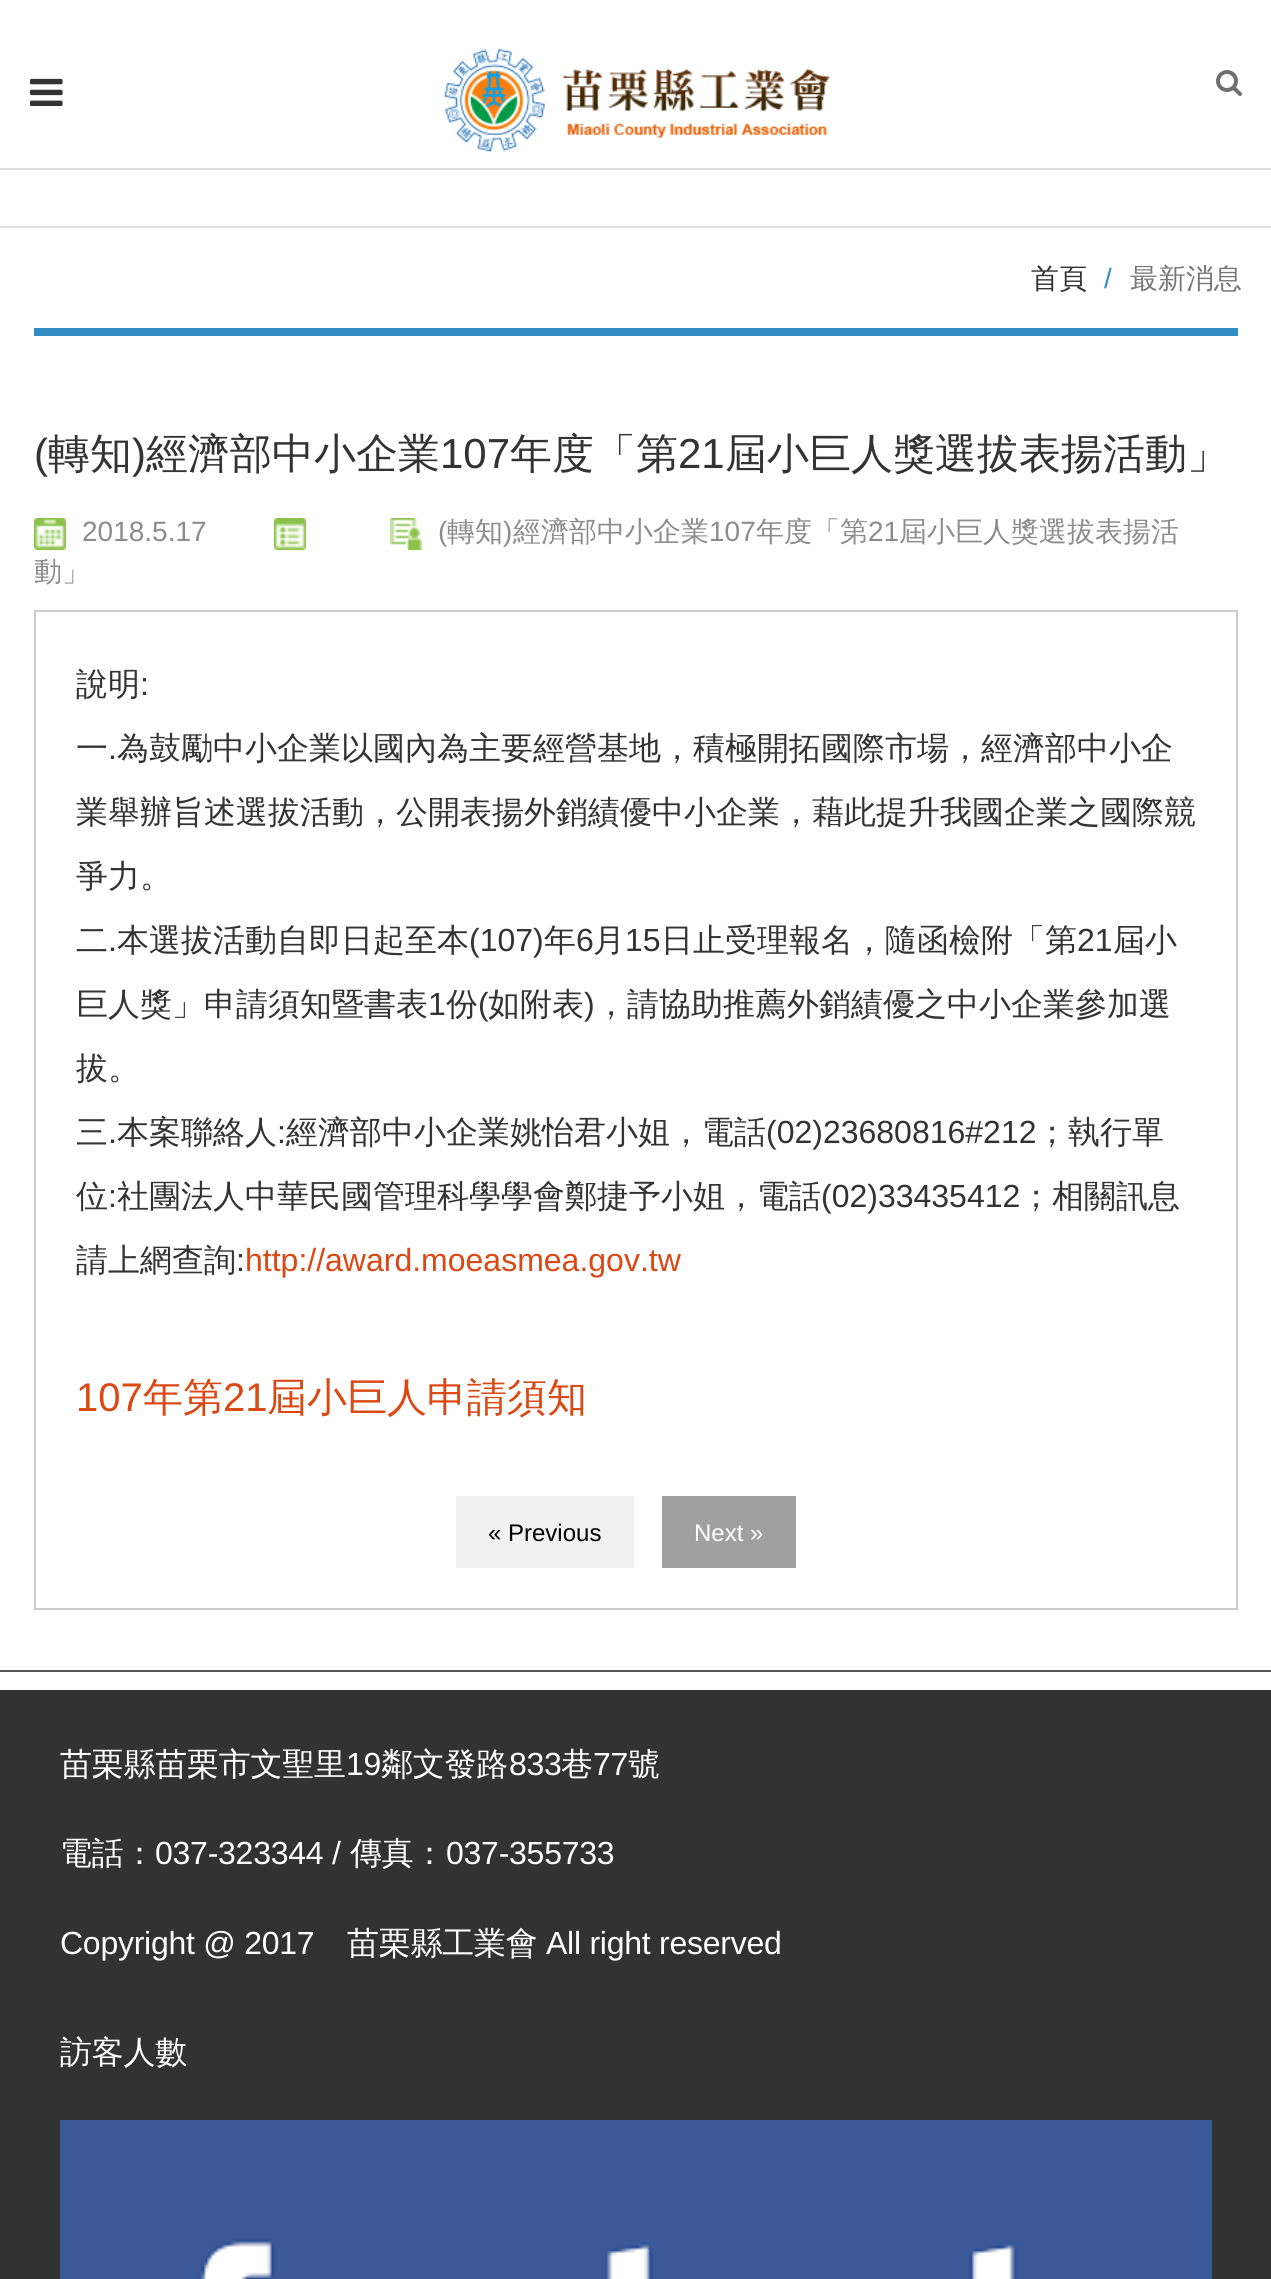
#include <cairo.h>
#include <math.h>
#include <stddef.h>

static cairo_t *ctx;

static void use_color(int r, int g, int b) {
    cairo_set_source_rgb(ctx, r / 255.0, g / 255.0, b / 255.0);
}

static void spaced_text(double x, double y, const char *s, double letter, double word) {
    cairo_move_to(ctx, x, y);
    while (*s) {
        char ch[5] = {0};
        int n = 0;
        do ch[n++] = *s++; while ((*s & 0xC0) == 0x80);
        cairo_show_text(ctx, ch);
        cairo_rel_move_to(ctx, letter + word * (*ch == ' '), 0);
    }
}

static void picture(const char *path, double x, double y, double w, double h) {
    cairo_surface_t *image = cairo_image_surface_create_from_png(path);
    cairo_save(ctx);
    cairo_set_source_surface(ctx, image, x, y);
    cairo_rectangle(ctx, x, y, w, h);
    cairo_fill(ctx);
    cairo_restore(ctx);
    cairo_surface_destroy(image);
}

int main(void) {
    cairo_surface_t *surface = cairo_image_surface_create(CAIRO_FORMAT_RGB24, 1271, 2279);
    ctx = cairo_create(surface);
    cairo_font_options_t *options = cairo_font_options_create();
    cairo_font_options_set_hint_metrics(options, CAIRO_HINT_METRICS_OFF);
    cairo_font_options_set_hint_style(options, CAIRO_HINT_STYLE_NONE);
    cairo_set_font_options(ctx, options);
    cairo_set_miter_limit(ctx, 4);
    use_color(255, 255, 255);
    cairo_paint(ctx);
    use_color(224, 224, 224);
    cairo_rectangle(ctx, 0, 226, 1271, 2);
    cairo_fill(ctx);
    cairo_rectangle(ctx, 0, 168, 1271, 2);
    cairo_fill(ctx);
    picture("img1.png", 30, 78, 33, 28);
    picture("img2.png", 444, 49, 387, 103);
    picture("img3.png", 1216, 70, 26, 26);
    cairo_select_font_face(ctx, "WenQuanYi Zen Hei Medium", CAIRO_FONT_SLANT_NORMAL, CAIRO_FONT_WEIGHT_NORMAL);
    cairo_set_font_size(ctx, 28);
    use_color(51, 51, 51);
    cairo_move_to(ctx, 1031, 288);
    cairo_show_text(ctx, "首頁");
    cairo_select_font_face(ctx, "Liberation Sans", CAIRO_FONT_SLANT_NORMAL, CAIRO_FONT_WEIGHT_NORMAL);
    use_color(48, 141, 195);
    cairo_move_to(ctx, 1104, 288);
    cairo_show_text(ctx, "/");
    cairo_select_font_face(ctx, "WenQuanYi Zen Hei Medium", CAIRO_FONT_SLANT_NORMAL, CAIRO_FONT_WEIGHT_NORMAL);
    use_color(119, 119, 119);
    cairo_move_to(ctx, 1130, 288);
    cairo_show_text(ctx, "最新消息");
    use_color(48, 141, 195);
    cairo_rectangle(ctx, 34, 328, 1204, 8);
    cairo_fill(ctx);
    cairo_select_font_face(ctx, "Liberation Sans", CAIRO_FONT_SLANT_NORMAL, CAIRO_FONT_WEIGHT_NORMAL);
    cairo_set_font_size(ctx, 42);
    use_color(51, 51, 51);
    cairo_move_to(ctx, 34, 468);
    cairo_show_text(ctx, "(");
    cairo_select_font_face(ctx, "WenQuanYi Zen Hei Medium", CAIRO_FONT_SLANT_NORMAL, CAIRO_FONT_WEIGHT_NORMAL);
    cairo_move_to(ctx, 48, 468);
    cairo_show_text(ctx, "轉知");
    cairo_select_font_face(ctx, "Liberation Sans", CAIRO_FONT_SLANT_NORMAL, CAIRO_FONT_WEIGHT_NORMAL);
    cairo_move_to(ctx, 132, 468);
    cairo_show_text(ctx, ")");
    cairo_select_font_face(ctx, "WenQuanYi Zen Hei Medium", CAIRO_FONT_SLANT_NORMAL, CAIRO_FONT_WEIGHT_NORMAL);
    cairo_move_to(ctx, 146, 468);
    cairo_show_text(ctx, "經濟部中小企業");
    cairo_select_font_face(ctx, "Liberation Sans", CAIRO_FONT_SLANT_NORMAL, CAIRO_FONT_WEIGHT_NORMAL);
    cairo_move_to(ctx, 440, 468);
    cairo_show_text(ctx, "107");
    cairo_select_font_face(ctx, "WenQuanYi Zen Hei Medium", CAIRO_FONT_SLANT_NORMAL, CAIRO_FONT_WEIGHT_NORMAL);
    cairo_move_to(ctx, 510, 468);
    cairo_show_text(ctx, "年度「第");
    cairo_select_font_face(ctx, "Liberation Sans", CAIRO_FONT_SLANT_NORMAL, CAIRO_FONT_WEIGHT_NORMAL);
    cairo_move_to(ctx, 678, 468);
    cairo_show_text(ctx, "21");
    cairo_select_font_face(ctx, "WenQuanYi Zen Hei Medium", CAIRO_FONT_SLANT_NORMAL, CAIRO_FONT_WEIGHT_NORMAL);
    cairo_move_to(ctx, 725, 468);
    cairo_show_text(ctx, "屆小巨人獎選拔表揚活動」");
    picture("img4.png", 34, 518, 32, 32);
    cairo_select_font_face(ctx, "Liberation Sans", CAIRO_FONT_SLANT_NORMAL, CAIRO_FONT_WEIGHT_NORMAL);
    cairo_set_font_size(ctx, 28);
    use_color(140, 140, 140);
    cairo_move_to(ctx, 82, 541);
    cairo_show_text(ctx, "2018.5.17");
    picture("img5.png", 274, 518, 32, 32);
    picture("img6.png", 390, 518, 32, 32);
    cairo_move_to(ctx, 438, 541);
    cairo_show_text(ctx, "(");
    cairo_select_font_face(ctx, "WenQuanYi Zen Hei Medium", CAIRO_FONT_SLANT_NORMAL, CAIRO_FONT_WEIGHT_NORMAL);
    cairo_move_to(ctx, 447, 541);
    cairo_show_text(ctx, "轉知");
    cairo_select_font_face(ctx, "Liberation Sans", CAIRO_FONT_SLANT_NORMAL, CAIRO_FONT_WEIGHT_NORMAL);
    cairo_move_to(ctx, 503, 541);
    cairo_show_text(ctx, ")");
    cairo_select_font_face(ctx, "WenQuanYi Zen Hei Medium", CAIRO_FONT_SLANT_NORMAL, CAIRO_FONT_WEIGHT_NORMAL);
    cairo_move_to(ctx, 513, 541);
    cairo_show_text(ctx, "經濟部中小企業");
    cairo_select_font_face(ctx, "Liberation Sans", CAIRO_FONT_SLANT_NORMAL, CAIRO_FONT_WEIGHT_NORMAL);
    cairo_move_to(ctx, 709, 541);
    cairo_show_text(ctx, "107");
    cairo_select_font_face(ctx, "WenQuanYi Zen Hei Medium", CAIRO_FONT_SLANT_NORMAL, CAIRO_FONT_WEIGHT_NORMAL);
    cairo_move_to(ctx, 756, 541);
    cairo_show_text(ctx, "年度「第");
    cairo_select_font_face(ctx, "Liberation Sans", CAIRO_FONT_SLANT_NORMAL, CAIRO_FONT_WEIGHT_NORMAL);
    cairo_move_to(ctx, 868, 541);
    cairo_show_text(ctx, "21");
    cairo_select_font_face(ctx, "WenQuanYi Zen Hei Medium", CAIRO_FONT_SLANT_NORMAL, CAIRO_FONT_WEIGHT_NORMAL);
    cairo_move_to(ctx, 899, 541);
    cairo_show_text(ctx, "屆小巨人獎選拔表揚活");
    cairo_move_to(ctx, 34, 581);
    cairo_show_text(ctx, "動」");
    cairo_rectangle(ctx, 35, 611, 1202, 998);
    use_color(204, 204, 204);
    cairo_stroke(ctx);
    cairo_set_font_size(ctx, 32);
    use_color(51, 51, 51);
    cairo_move_to(ctx, 76, 695);
    cairo_show_text(ctx, "說明");
    cairo_select_font_face(ctx, "Liberation Sans", CAIRO_FONT_SLANT_NORMAL, CAIRO_FONT_WEIGHT_NORMAL);
    cairo_move_to(ctx, 140, 695);
    cairo_show_text(ctx, ":");
    cairo_select_font_face(ctx, "WenQuanYi Zen Hei Medium", CAIRO_FONT_SLANT_NORMAL, CAIRO_FONT_WEIGHT_NORMAL);
    cairo_move_to(ctx, 76, 759);
    cairo_show_text(ctx, "一");
    cairo_move_to(ctx, 117, 759);
    cairo_show_text(ctx, "為鼓勵中小企業以國內為主要經營基地，積極開拓國際市場，經濟部中小企");
    cairo_select_font_face(ctx, "Liberation Sans", CAIRO_FONT_SLANT_NORMAL, CAIRO_FONT_WEIGHT_NORMAL);
    cairo_move_to(ctx, 108, 759);
    cairo_show_text(ctx, ".");
    cairo_select_font_face(ctx, "WenQuanYi Zen Hei Medium", CAIRO_FONT_SLANT_NORMAL, CAIRO_FONT_WEIGHT_NORMAL);
    cairo_move_to(ctx, 76, 823);
    cairo_show_text(ctx, "業舉辦旨述選拔活動，公開表揚外銷績優中小企業，藉此提升我國企業之國際競");
    cairo_move_to(ctx, 76, 887);
    cairo_show_text(ctx, "爭力。");
    cairo_move_to(ctx, 76, 951);
    cairo_show_text(ctx, "二");
    cairo_select_font_face(ctx, "Liberation Sans", CAIRO_FONT_SLANT_NORMAL, CAIRO_FONT_WEIGHT_NORMAL);
    cairo_move_to(ctx, 108, 951);
    cairo_show_text(ctx, ".");
    cairo_select_font_face(ctx, "WenQuanYi Zen Hei Medium", CAIRO_FONT_SLANT_NORMAL, CAIRO_FONT_WEIGHT_NORMAL);
    cairo_move_to(ctx, 117, 951);
    cairo_show_text(ctx, "本選拔活動自即日起至本");
    cairo_select_font_face(ctx, "Liberation Sans", CAIRO_FONT_SLANT_NORMAL, CAIRO_FONT_WEIGHT_NORMAL);
    cairo_move_to(ctx, 469, 951);
    cairo_show_text(ctx, "(107)");
    cairo_select_font_face(ctx, "WenQuanYi Zen Hei Medium", CAIRO_FONT_SLANT_NORMAL, CAIRO_FONT_WEIGHT_NORMAL);
    cairo_move_to(ctx, 544, 951);
    cairo_show_text(ctx, "年");
    cairo_select_font_face(ctx, "Liberation Sans", CAIRO_FONT_SLANT_NORMAL, CAIRO_FONT_WEIGHT_NORMAL);
    cairo_move_to(ctx, 576, 951);
    cairo_show_text(ctx, "6");
    cairo_select_font_face(ctx, "WenQuanYi Zen Hei Medium", CAIRO_FONT_SLANT_NORMAL, CAIRO_FONT_WEIGHT_NORMAL);
    cairo_move_to(ctx, 593, 951);
    cairo_show_text(ctx, "月");
    cairo_select_font_face(ctx, "Liberation Sans", CAIRO_FONT_SLANT_NORMAL, CAIRO_FONT_WEIGHT_NORMAL);
    cairo_move_to(ctx, 625, 951);
    cairo_show_text(ctx, "15");
    cairo_select_font_face(ctx, "WenQuanYi Zen Hei Medium", CAIRO_FONT_SLANT_NORMAL, CAIRO_FONT_WEIGHT_NORMAL);
    cairo_move_to(ctx, 661, 951);
    cairo_show_text(ctx, "日止受理報名，隨函檢附「第");
    cairo_select_font_face(ctx, "Liberation Sans", CAIRO_FONT_SLANT_NORMAL, CAIRO_FONT_WEIGHT_NORMAL);
    cairo_move_to(ctx, 1077, 951);
    cairo_show_text(ctx, "21");
    cairo_select_font_face(ctx, "WenQuanYi Zen Hei Medium", CAIRO_FONT_SLANT_NORMAL, CAIRO_FONT_WEIGHT_NORMAL);
    cairo_move_to(ctx, 1113, 951);
    cairo_show_text(ctx, "屆小");
    cairo_move_to(ctx, 76, 1015);
    cairo_show_text(ctx, "巨人獎」申請須知暨書表");
    cairo_select_font_face(ctx, "Liberation Sans", CAIRO_FONT_SLANT_NORMAL, CAIRO_FONT_WEIGHT_NORMAL);
    cairo_move_to(ctx, 428, 1015);
    cairo_show_text(ctx, "1");
    cairo_select_font_face(ctx, "WenQuanYi Zen Hei Medium", CAIRO_FONT_SLANT_NORMAL, CAIRO_FONT_WEIGHT_NORMAL);
    cairo_move_to(ctx, 446, 1015);
    cairo_show_text(ctx, "份");
    cairo_select_font_face(ctx, "Liberation Sans", CAIRO_FONT_SLANT_NORMAL, CAIRO_FONT_WEIGHT_NORMAL);
    cairo_move_to(ctx, 478, 1015);
    cairo_show_text(ctx, "(");
    cairo_select_font_face(ctx, "WenQuanYi Zen Hei Medium", CAIRO_FONT_SLANT_NORMAL, CAIRO_FONT_WEIGHT_NORMAL);
    cairo_move_to(ctx, 488, 1015);
    cairo_show_text(ctx, "如附表");
    cairo_select_font_face(ctx, "Liberation Sans", CAIRO_FONT_SLANT_NORMAL, CAIRO_FONT_WEIGHT_NORMAL);
    cairo_move_to(ctx, 584, 1015);
    cairo_show_text(ctx, ")");
    cairo_select_font_face(ctx, "WenQuanYi Zen Hei Medium", CAIRO_FONT_SLANT_NORMAL, CAIRO_FONT_WEIGHT_NORMAL);
    cairo_move_to(ctx, 595, 1015);
    cairo_show_text(ctx, "，請協助推薦外銷績優之中小企業參加選");
    cairo_move_to(ctx, 76, 1079);
    cairo_show_text(ctx, "拔。");
    cairo_move_to(ctx, 76, 1143);
    cairo_show_text(ctx, "三");
    cairo_select_font_face(ctx, "Liberation Sans", CAIRO_FONT_SLANT_NORMAL, CAIRO_FONT_WEIGHT_NORMAL);
    cairo_move_to(ctx, 108, 1143);
    cairo_show_text(ctx, ".");
    cairo_select_font_face(ctx, "WenQuanYi Zen Hei Medium", CAIRO_FONT_SLANT_NORMAL, CAIRO_FONT_WEIGHT_NORMAL);
    cairo_move_to(ctx, 117, 1143);
    cairo_show_text(ctx, "本案聯絡人");
    cairo_select_font_face(ctx, "Liberation Sans", CAIRO_FONT_SLANT_NORMAL, CAIRO_FONT_WEIGHT_NORMAL);
    cairo_move_to(ctx, 277, 1143);
    cairo_show_text(ctx, ":");
    cairo_select_font_face(ctx, "WenQuanYi Zen Hei Medium", CAIRO_FONT_SLANT_NORMAL, CAIRO_FONT_WEIGHT_NORMAL);
    cairo_move_to(ctx, 286, 1143);
    cairo_show_text(ctx, "經濟部中小企業姚怡君小姐，電話");
    cairo_select_font_face(ctx, "Liberation Sans", CAIRO_FONT_SLANT_NORMAL, CAIRO_FONT_WEIGHT_NORMAL);
    cairo_move_to(ctx, 766, 1143);
    cairo_show_text(ctx, "(02)23680816#212");
    cairo_select_font_face(ctx, "WenQuanYi Zen Hei Medium", CAIRO_FONT_SLANT_NORMAL, CAIRO_FONT_WEIGHT_NORMAL);
    cairo_move_to(ctx, 1036, 1143);
    cairo_show_text(ctx, "；執行單");
    cairo_move_to(ctx, 76, 1207);
    cairo_show_text(ctx, "位");
    cairo_select_font_face(ctx, "Liberation Sans", CAIRO_FONT_SLANT_NORMAL, CAIRO_FONT_WEIGHT_NORMAL);
    cairo_move_to(ctx, 108, 1207);
    cairo_show_text(ctx, ":");
    cairo_select_font_face(ctx, "WenQuanYi Zen Hei Medium", CAIRO_FONT_SLANT_NORMAL, CAIRO_FONT_WEIGHT_NORMAL);
    cairo_move_to(ctx, 117, 1207);
    cairo_show_text(ctx, "社團法人中華民國管理科學學會鄭捷予小姐，電話");
    cairo_select_font_face(ctx, "Liberation Sans", CAIRO_FONT_SLANT_NORMAL, CAIRO_FONT_WEIGHT_NORMAL);
    cairo_move_to(ctx, 821, 1207);
    cairo_show_text(ctx, "(02)33435412");
    cairo_select_font_face(ctx, "WenQuanYi Zen Hei Medium", CAIRO_FONT_SLANT_NORMAL, CAIRO_FONT_WEIGHT_NORMAL);
    cairo_move_to(ctx, 1020, 1207);
    cairo_show_text(ctx, "；相關訊息");
    cairo_move_to(ctx, 76, 1271);
    cairo_show_text(ctx, "請上網查詢");
    cairo_select_font_face(ctx, "Liberation Sans", CAIRO_FONT_SLANT_NORMAL, CAIRO_FONT_WEIGHT_NORMAL);
    cairo_move_to(ctx, 236, 1271);
    cairo_show_text(ctx, ":");
    use_color(219, 72, 20);
    cairo_move_to(ctx, 245, 1271);
    cairo_show_text(ctx, "http://award.moeasmea.gov.tw");
    cairo_set_font_size(ctx, 40);
    cairo_move_to(ctx, 76, 1411);
    cairo_show_text(ctx, "107");
    cairo_select_font_face(ctx, "WenQuanYi Zen Hei Medium", CAIRO_FONT_SLANT_NORMAL, CAIRO_FONT_WEIGHT_NORMAL);
    cairo_move_to(ctx, 143, 1411);
    cairo_show_text(ctx, "年第");
    cairo_select_font_face(ctx, "Liberation Sans", CAIRO_FONT_SLANT_NORMAL, CAIRO_FONT_WEIGHT_NORMAL);
    cairo_move_to(ctx, 223, 1411);
    cairo_show_text(ctx, "21");
    cairo_select_font_face(ctx, "WenQuanYi Zen Hei Medium", CAIRO_FONT_SLANT_NORMAL, CAIRO_FONT_WEIGHT_NORMAL);
    cairo_move_to(ctx, 267, 1411);
    cairo_show_text(ctx, "屆小巨人申請須知");
    use_color(241, 241, 241);
    cairo_rectangle(ctx, 456, 1496, 178, 72);
    cairo_fill(ctx);
    cairo_select_font_face(ctx, "Liberation Sans", CAIRO_FONT_SLANT_NORMAL, CAIRO_FONT_WEIGHT_NORMAL);
    cairo_set_font_size(ctx, 24);
    use_color(0, 0, 0);
    cairo_move_to(ctx, 488, 1541);
    cairo_show_text(ctx, "« Previous");
    use_color(160, 160, 160);
    cairo_rectangle(ctx, 662, 1496, 134, 72);
    cairo_fill(ctx);
    use_color(255, 255, 255);
    cairo_move_to(ctx, 694, 1541);
    cairo_show_text(ctx, "Next »");
    use_color(50, 50, 50);
    cairo_rectangle(ctx, 0, 1690, 1271, 589);
    cairo_fill(ctx);
    use_color(87, 87, 87);
    cairo_rectangle(ctx, 0, 1670, 1271, 2);
    cairo_fill(ctx);
    cairo_select_font_face(ctx, "WenQuanYi Zen Hei Medium", CAIRO_FONT_SLANT_NORMAL, CAIRO_FONT_WEIGHT_NORMAL);
    cairo_set_font_size(ctx, 32);
    use_color(255, 255, 255);
    spaced_text(60, 1775, "苗栗縣苗栗市文聖里", -0.25, 0);
    cairo_select_font_face(ctx, "Liberation Sans", CAIRO_FONT_SLANT_NORMAL, CAIRO_FONT_WEIGHT_NORMAL);
    spaced_text(346, 1775, "19", -0.25, 0);
    cairo_select_font_face(ctx, "WenQuanYi Zen Hei Medium", CAIRO_FONT_SLANT_NORMAL, CAIRO_FONT_WEIGHT_NORMAL);
    spaced_text(381, 1775, "鄰文發路", -0.25, 0);
    cairo_select_font_face(ctx, "Liberation Sans", CAIRO_FONT_SLANT_NORMAL, CAIRO_FONT_WEIGHT_NORMAL);
    spaced_text(509, 1775, "833", -0.25, 0);
    cairo_select_font_face(ctx, "WenQuanYi Zen Hei Medium", CAIRO_FONT_SLANT_NORMAL, CAIRO_FONT_WEIGHT_NORMAL);
    spaced_text(561, 1775, "巷", -0.25, 0);
    cairo_select_font_face(ctx, "Liberation Sans", CAIRO_FONT_SLANT_NORMAL, CAIRO_FONT_WEIGHT_NORMAL);
    spaced_text(593, 1775, "77", -0.25, 0);
    cairo_select_font_face(ctx, "WenQuanYi Zen Hei Medium", CAIRO_FONT_SLANT_NORMAL, CAIRO_FONT_WEIGHT_NORMAL);
    spaced_text(628, 1775, "號", -0.25, 0);
    spaced_text(60, 1864, "電話：", -0.25, 0);
    cairo_select_font_face(ctx, "Liberation Sans", CAIRO_FONT_SLANT_NORMAL, CAIRO_FONT_WEIGHT_NORMAL);
    spaced_text(155, 1864, "037-323344 /", -0.25, 0);
    cairo_select_font_face(ctx, "WenQuanYi Zen Hei Medium", CAIRO_FONT_SLANT_NORMAL, CAIRO_FONT_WEIGHT_NORMAL);
    spaced_text(350, 1864, "傳真：", -0.25, 0);
    cairo_select_font_face(ctx, "Liberation Sans", CAIRO_FONT_SLANT_NORMAL, CAIRO_FONT_WEIGHT_NORMAL);
    spaced_text(446, 1864, "037-355733", -0.25, 0);
    spaced_text(60, 1954, "Copyright @ 2017", -0.25, 0);
    cairo_select_font_face(ctx, "WenQuanYi Zen Hei Medium", CAIRO_FONT_SLANT_NORMAL, CAIRO_FONT_WEIGHT_NORMAL);
    spaced_text(347, 1954, "苗栗縣工業會", -0.25, 0);
    cairo_select_font_face(ctx, "Liberation Sans", CAIRO_FONT_SLANT_NORMAL, CAIRO_FONT_WEIGHT_NORMAL);
    spaced_text(546, 1954, "All right reserved", -0.25, 0);
    cairo_select_font_face(ctx, "WenQuanYi Zen Hei Medium", CAIRO_FONT_SLANT_NORMAL, CAIRO_FONT_WEIGHT_NORMAL);
    spaced_text(60, 2063, "訪客人數", -0.25, 0);
    picture("img7.png", 60, 2120, 1152, 159);
    cairo_surface_write_to_png(surface, "result.png");
    cairo_font_options_destroy(options);
    cairo_destroy(ctx);
    cairo_surface_destroy(surface);
    return 0;
}
